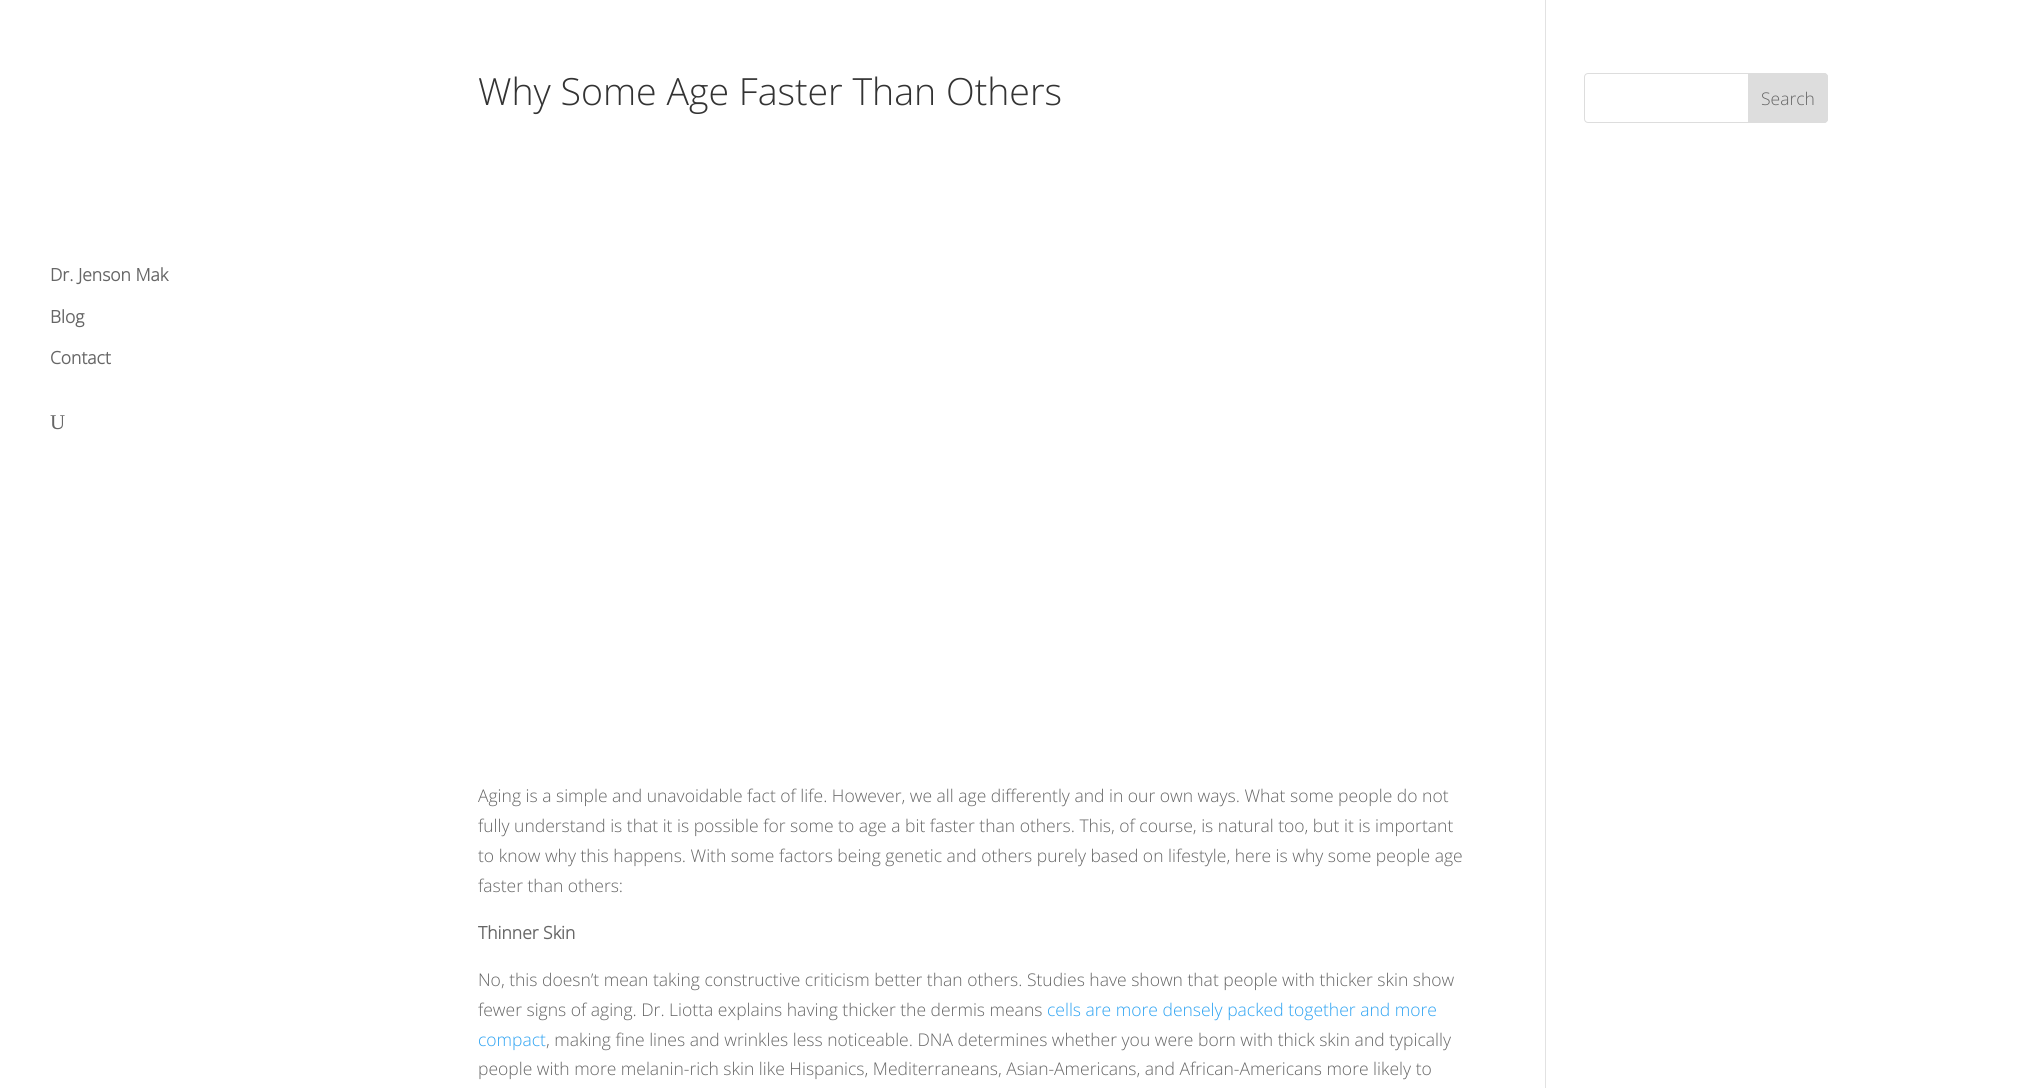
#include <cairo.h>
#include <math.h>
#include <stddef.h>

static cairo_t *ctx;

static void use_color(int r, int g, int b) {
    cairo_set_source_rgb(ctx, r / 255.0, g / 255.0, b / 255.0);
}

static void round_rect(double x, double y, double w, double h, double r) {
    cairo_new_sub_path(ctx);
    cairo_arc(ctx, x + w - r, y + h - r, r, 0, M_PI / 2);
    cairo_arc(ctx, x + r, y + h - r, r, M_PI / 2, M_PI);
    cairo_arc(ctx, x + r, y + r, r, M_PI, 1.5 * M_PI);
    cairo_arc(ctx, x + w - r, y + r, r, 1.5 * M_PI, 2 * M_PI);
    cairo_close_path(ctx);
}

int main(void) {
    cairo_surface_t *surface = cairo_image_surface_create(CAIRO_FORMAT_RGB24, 2024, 1088);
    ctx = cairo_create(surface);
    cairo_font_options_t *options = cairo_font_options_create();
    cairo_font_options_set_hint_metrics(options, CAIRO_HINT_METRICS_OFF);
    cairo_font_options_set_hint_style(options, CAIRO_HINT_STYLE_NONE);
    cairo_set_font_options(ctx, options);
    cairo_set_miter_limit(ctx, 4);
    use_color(255, 255, 255);
    cairo_paint(ctx);
    cairo_select_font_face(ctx, "Open Sans", CAIRO_FONT_SLANT_NORMAL, CAIRO_FONT_WEIGHT_BOLD);
    cairo_set_font_size(ctx, 17.5);
    use_color(102, 102, 102);
    cairo_move_to(ctx, 50, 281);
    cairo_show_text(ctx, "Dr. Jenson Mak");
    cairo_move_to(ctx, 50, 323);
    cairo_show_text(ctx, "Blog");
    cairo_move_to(ctx, 50, 364);
    cairo_show_text(ctx, "Contact");
    cairo_select_font_face(ctx, "Liberation Serif", CAIRO_FONT_SLANT_NORMAL, CAIRO_FONT_WEIGHT_NORMAL);
    cairo_set_font_size(ctx, 21);
    cairo_move_to(ctx, 50, 429);
    cairo_show_text(ctx, "U");
    use_color(226, 226, 226);
    cairo_rectangle(ctx, 1545, 0, 1, 1088);
    cairo_fill(ctx);
    cairo_select_font_face(ctx, "Open Sans Light", CAIRO_FONT_SLANT_NORMAL, CAIRO_FONT_WEIGHT_NORMAL);
    cairo_set_font_size(ctx, 37.5);
    use_color(51, 51, 51);
    cairo_move_to(ctx, 478, 105);
    cairo_show_text(ctx, "Why Some Age Faster Than Others");
    cairo_set_font_size(ctx, 17.5);
    use_color(102, 102, 102);
    cairo_move_to(ctx, 478, 802);
    cairo_show_text(ctx, "Aging is a simple and unavoidable fact of life. However, we all age differently and in our own ways. What some people do not");
    cairo_move_to(ctx, 478, 832);
    cairo_show_text(ctx, "fully understand is that it is possible for some to age a bit faster than others. This, of course, is natural too, but it is important");
    cairo_move_to(ctx, 478, 862);
    cairo_show_text(ctx, "to know why this happens. With some factors being genetic and others purely based on lifestyle, here is why some people age");
    cairo_move_to(ctx, 478, 892);
    cairo_show_text(ctx, "faster than others:");
    cairo_select_font_face(ctx, "Open Sans", CAIRO_FONT_SLANT_NORMAL, CAIRO_FONT_WEIGHT_BOLD);
    cairo_move_to(ctx, 478, 939);
    cairo_show_text(ctx, "Thinner Skin");
    cairo_select_font_face(ctx, "Open Sans Light", CAIRO_FONT_SLANT_NORMAL, CAIRO_FONT_WEIGHT_NORMAL);
    cairo_move_to(ctx, 478, 986);
    cairo_show_text(ctx, "No, this doesn’t mean taking constructive criticism better than others. Studies have shown that people with thicker skin show");
    cairo_move_to(ctx, 478, 1016);
    cairo_show_text(ctx, "fewer signs of aging. Dr. Liotta explains having thicker the dermis means");
    use_color(46, 163, 242);
    cairo_move_to(ctx, 1047, 1016);
    cairo_show_text(ctx, "cells are more densely packed together and more");
    cairo_move_to(ctx, 478, 1046);
    cairo_show_text(ctx, "compact");
    use_color(102, 102, 102);
    cairo_move_to(ctx, 546, 1046);
    cairo_show_text(ctx, ", making fine lines and wrinkles less noticeable. DNA determines whether you were born with thick skin and typically");
    cairo_move_to(ctx, 478, 1075);
    cairo_show_text(ctx, "people with more melanin-rich skin like Hispanics, Mediterraneans, Asian-Americans, and African-Americans more likely to");
    round_rect(1584.5, 73.5, 243, 49, 3.5);
    use_color(221, 221, 221);
    cairo_set_line_width(ctx, 1);
    cairo_stroke(ctx);
    cairo_new_path(ctx);
    cairo_move_to(ctx, 1748.5, 73.5);
    cairo_line_to(ctx, 1824, 73.5);
    cairo_curve_to(ctx, 1826, 73.5, 1827.5, 75, 1827.5, 77);
    cairo_line_to(ctx, 1827.5, 119);
    cairo_curve_to(ctx, 1827.5, 121, 1826, 122.5, 1824, 122.5);
    cairo_line_to(ctx, 1748.5, 122.5);
    cairo_close_path(ctx);
    cairo_fill_preserve(ctx);
    cairo_stroke(ctx);
    use_color(102, 102, 102);
    cairo_move_to(ctx, 1761, 105);
    cairo_show_text(ctx, "Search");
    cairo_surface_write_to_png(surface, "result.png");
    cairo_font_options_destroy(options);
    cairo_destroy(ctx);
    cairo_surface_destroy(surface);
    return 0;
}
